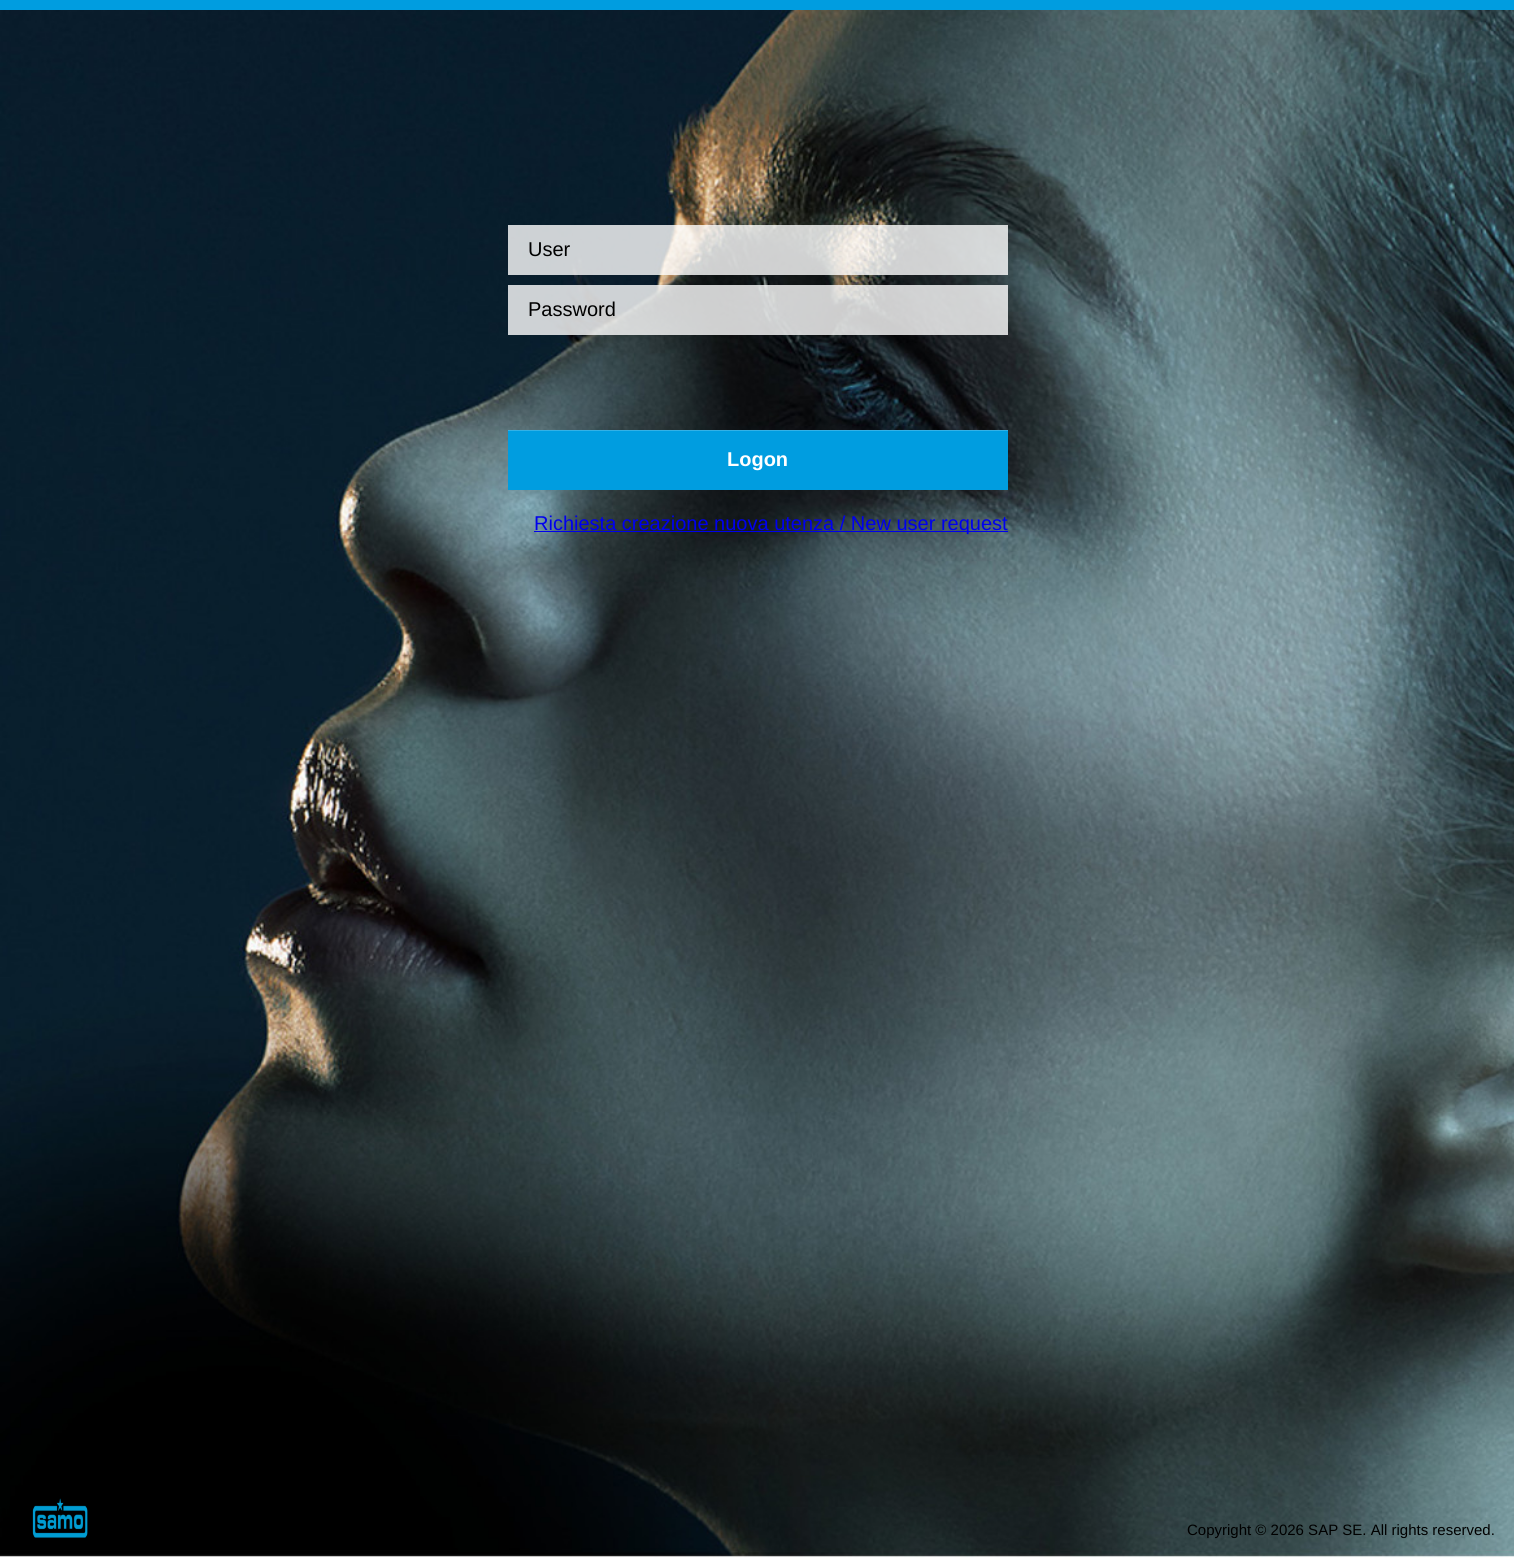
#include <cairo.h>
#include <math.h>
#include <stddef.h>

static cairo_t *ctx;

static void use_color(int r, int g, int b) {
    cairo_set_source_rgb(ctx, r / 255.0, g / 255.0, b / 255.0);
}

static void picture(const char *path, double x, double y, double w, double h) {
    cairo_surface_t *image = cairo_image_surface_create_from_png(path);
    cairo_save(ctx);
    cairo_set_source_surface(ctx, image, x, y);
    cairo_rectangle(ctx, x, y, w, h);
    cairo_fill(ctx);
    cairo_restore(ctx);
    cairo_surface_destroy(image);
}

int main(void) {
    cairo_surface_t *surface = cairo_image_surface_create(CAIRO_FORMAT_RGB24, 1514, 1558);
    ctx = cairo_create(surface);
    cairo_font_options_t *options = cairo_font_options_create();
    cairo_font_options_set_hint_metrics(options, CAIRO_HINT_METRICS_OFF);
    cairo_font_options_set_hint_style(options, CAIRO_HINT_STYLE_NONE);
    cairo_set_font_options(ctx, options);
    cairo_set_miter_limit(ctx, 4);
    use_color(255, 255, 255);
    cairo_paint(ctx);
    picture("img1.png", 0, 10, 1514, 1548);
    use_color(0, 157, 224);
    cairo_rectangle(ctx, 0, 0, 1514, 10);
    cairo_fill(ctx);
    cairo_set_source_rgba(ctx, 1, 1, 1, 0.8);
    cairo_rectangle(ctx, 508, 225, 500, 50);
    cairo_fill(ctx);
    cairo_select_font_face(ctx, "Liberation Sans", CAIRO_FONT_SLANT_NORMAL, CAIRO_FONT_WEIGHT_NORMAL);
    cairo_set_font_size(ctx, 20);
    use_color(0, 0, 0);
    cairo_move_to(ctx, 528, 256);
    cairo_show_text(ctx, "User");
    cairo_set_source_rgba(ctx, 1, 1, 1, 0.8);
    cairo_rectangle(ctx, 508, 285, 500, 50);
    cairo_fill(ctx);
    use_color(0, 0, 0);
    cairo_move_to(ctx, 528, 316);
    cairo_show_text(ctx, "Password");
    use_color(0, 157, 224);
    cairo_rectangle(ctx, 508, 431, 500, 59);
    cairo_fill(ctx);
    use_color(51, 177, 230);
    cairo_rectangle(ctx, 508, 430, 500, 1);
    cairo_fill(ctx);
    cairo_select_font_face(ctx, "Liberation Sans", CAIRO_FONT_SLANT_NORMAL, CAIRO_FONT_WEIGHT_BOLD);
    use_color(255, 255, 255);
    cairo_move_to(ctx, 727, 466);
    cairo_show_text(ctx, "Logon");
    use_color(0, 0, 238);
    cairo_rectangle(ctx, 534, 531, 474, 1);
    cairo_fill(ctx);
    cairo_select_font_face(ctx, "Liberation Sans", CAIRO_FONT_SLANT_NORMAL, CAIRO_FONT_WEIGHT_NORMAL);
    cairo_move_to(ctx, 534, 530);
    cairo_show_text(ctx, "Richiesta creazione nuova utenza / New user request");
    picture("img2.png", 32, 1498, 56, 40);
    cairo_set_font_size(ctx, 15);
    use_color(0, 0, 0);
    cairo_move_to(ctx, 1187, 1535);
    cairo_show_text(ctx, "Copyright © 2026 SAP SE. All rights reserved.");
    cairo_surface_write_to_png(surface, "result.png");
    cairo_font_options_destroy(options);
    cairo_destroy(ctx);
    cairo_surface_destroy(surface);
    return 0;
}
